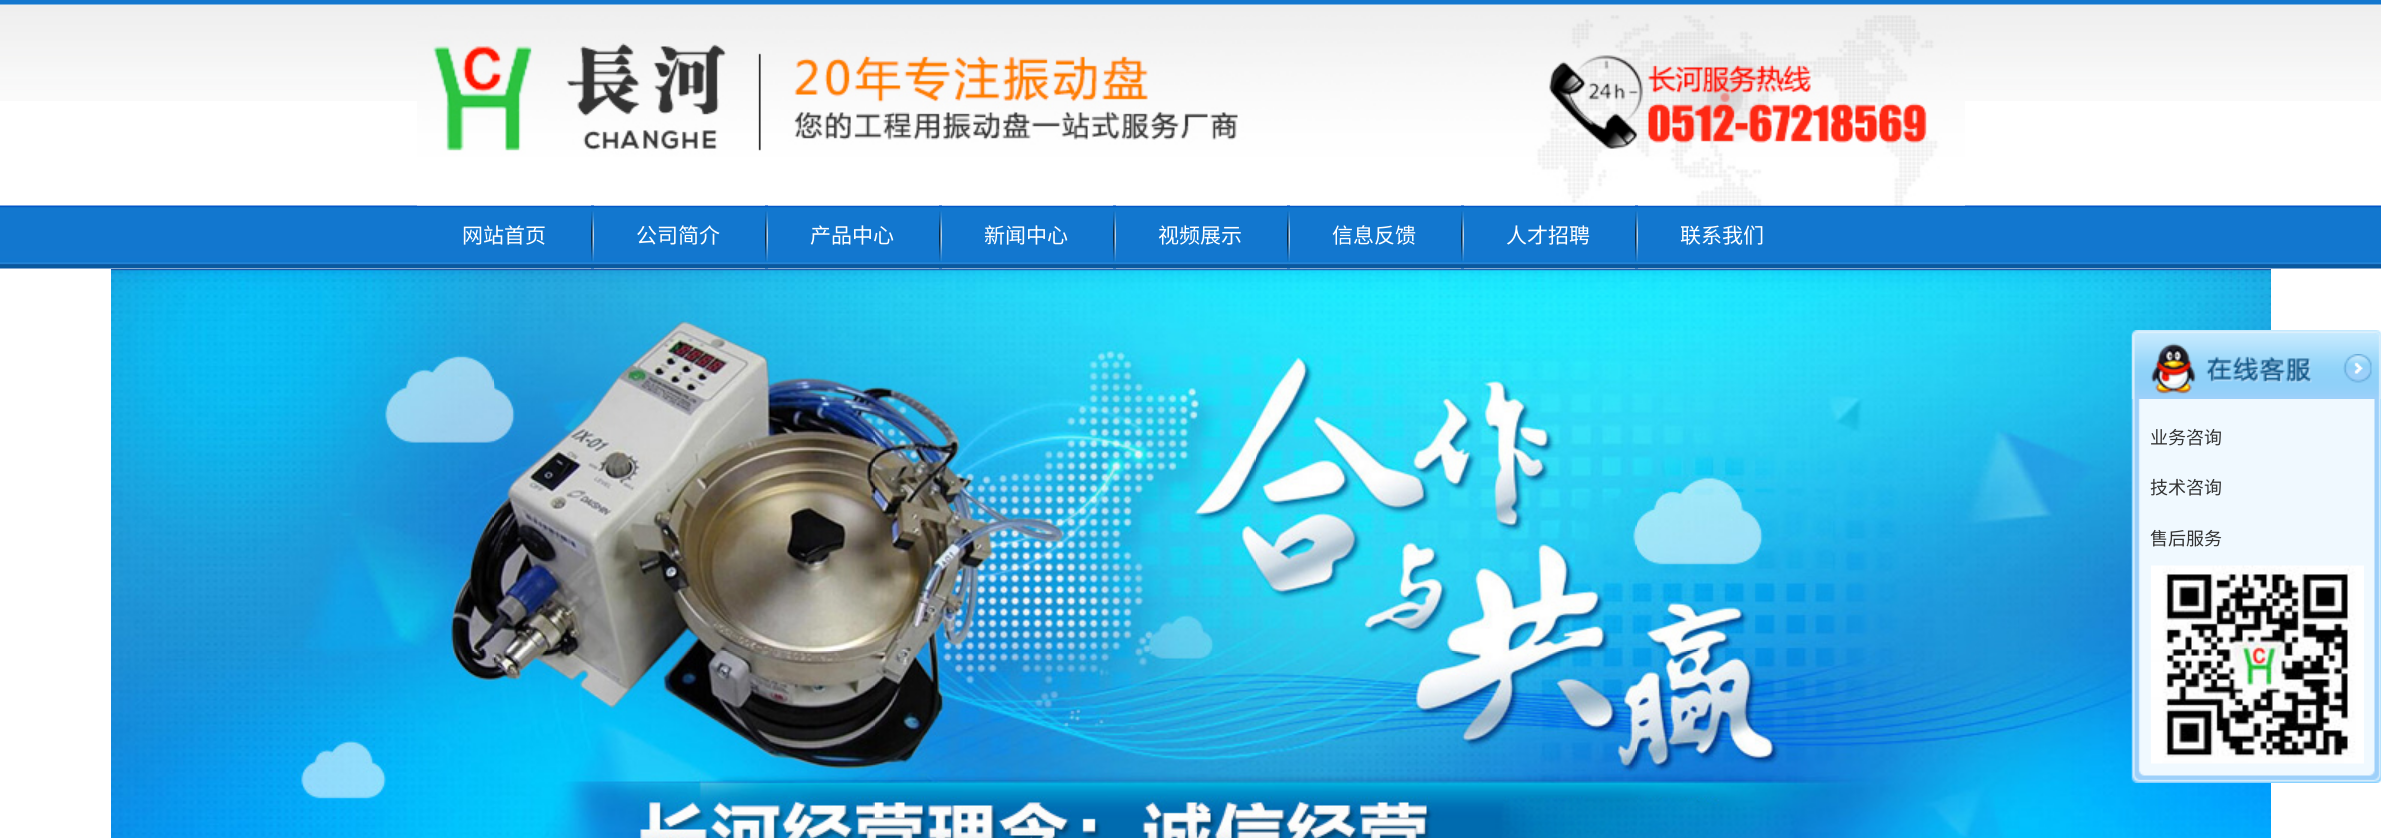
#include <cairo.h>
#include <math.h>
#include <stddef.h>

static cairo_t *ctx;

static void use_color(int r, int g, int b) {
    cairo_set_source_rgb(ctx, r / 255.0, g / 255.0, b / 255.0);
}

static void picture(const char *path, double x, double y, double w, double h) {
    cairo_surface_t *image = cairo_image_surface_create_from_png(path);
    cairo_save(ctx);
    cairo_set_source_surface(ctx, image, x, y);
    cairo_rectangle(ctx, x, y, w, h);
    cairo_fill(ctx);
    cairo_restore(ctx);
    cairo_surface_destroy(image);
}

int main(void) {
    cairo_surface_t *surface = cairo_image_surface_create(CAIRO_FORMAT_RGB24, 2381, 838);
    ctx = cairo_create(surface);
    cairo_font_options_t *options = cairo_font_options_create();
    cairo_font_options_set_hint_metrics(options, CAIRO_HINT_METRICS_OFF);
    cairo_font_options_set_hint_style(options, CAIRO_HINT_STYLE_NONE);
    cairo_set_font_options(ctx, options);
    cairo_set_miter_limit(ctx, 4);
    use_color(255, 255, 255);
    cairo_paint(ctx);
    picture("img1.png", 0, 0, 2381, 101);
    picture("img3.png", 0, 205, 2381, 64);
    picture("img2.png", 417, 15, 1548, 191);
    cairo_select_font_face(ctx, "Noto Sans CJK SC", CAIRO_FONT_SLANT_NORMAL, CAIRO_FONT_WEIGHT_NORMAL);
    cairo_set_font_size(ctx, 21);
    use_color(255, 255, 255);
    cairo_move_to(ctx, 462, 243);
    cairo_show_text(ctx, "网站首页");
    picture("img4.png", 591, 205, 3, 64);
    cairo_move_to(ctx, 636, 243);
    cairo_show_text(ctx, "公司简介");
    picture("img5.png", 765, 205, 3, 64);
    cairo_move_to(ctx, 810, 243);
    cairo_show_text(ctx, "产品中心");
    picture("img5.png", 939, 205, 3, 64);
    cairo_move_to(ctx, 984, 243);
    cairo_show_text(ctx, "新闻中心");
    picture("img4.png", 1113, 205, 3, 64);
    cairo_move_to(ctx, 1158, 243);
    cairo_show_text(ctx, "视频展示");
    picture("img4.png", 1287, 205, 3, 64);
    cairo_move_to(ctx, 1332, 243);
    cairo_show_text(ctx, "信息反馈");
    picture("img5.png", 1461, 205, 3, 64);
    cairo_move_to(ctx, 1506, 243);
    cairo_show_text(ctx, "人才招聘");
    picture("img5.png", 1635, 205, 3, 64);
    cairo_move_to(ctx, 1680, 243);
    cairo_show_text(ctx, "联系我们");
    picture("img6.png", 111, 269, 2160, 569);
    picture("img7.png", 2131, 330, 250, 69);
    picture("img8.png", 2343, 354, 29, 29);
    picture("img9.png", 2131, 399, 250, 372);
    cairo_set_font_size(ctx, 18);
    use_color(51, 51, 51);
    cairo_move_to(ctx, 2150, 444);
    cairo_show_text(ctx, "业务咨询");
    cairo_move_to(ctx, 2150, 494);
    cairo_show_text(ctx, "技术咨询");
    cairo_move_to(ctx, 2150, 545);
    cairo_show_text(ctx, "售后服务");
    picture("img10.png", 2151, 565, 213, 199);
    picture("img11.png", 2131, 771, 250, 12);
    cairo_surface_write_to_png(surface, "result.png");
    cairo_font_options_destroy(options);
    cairo_destroy(ctx);
    cairo_surface_destroy(surface);
    return 0;
}
